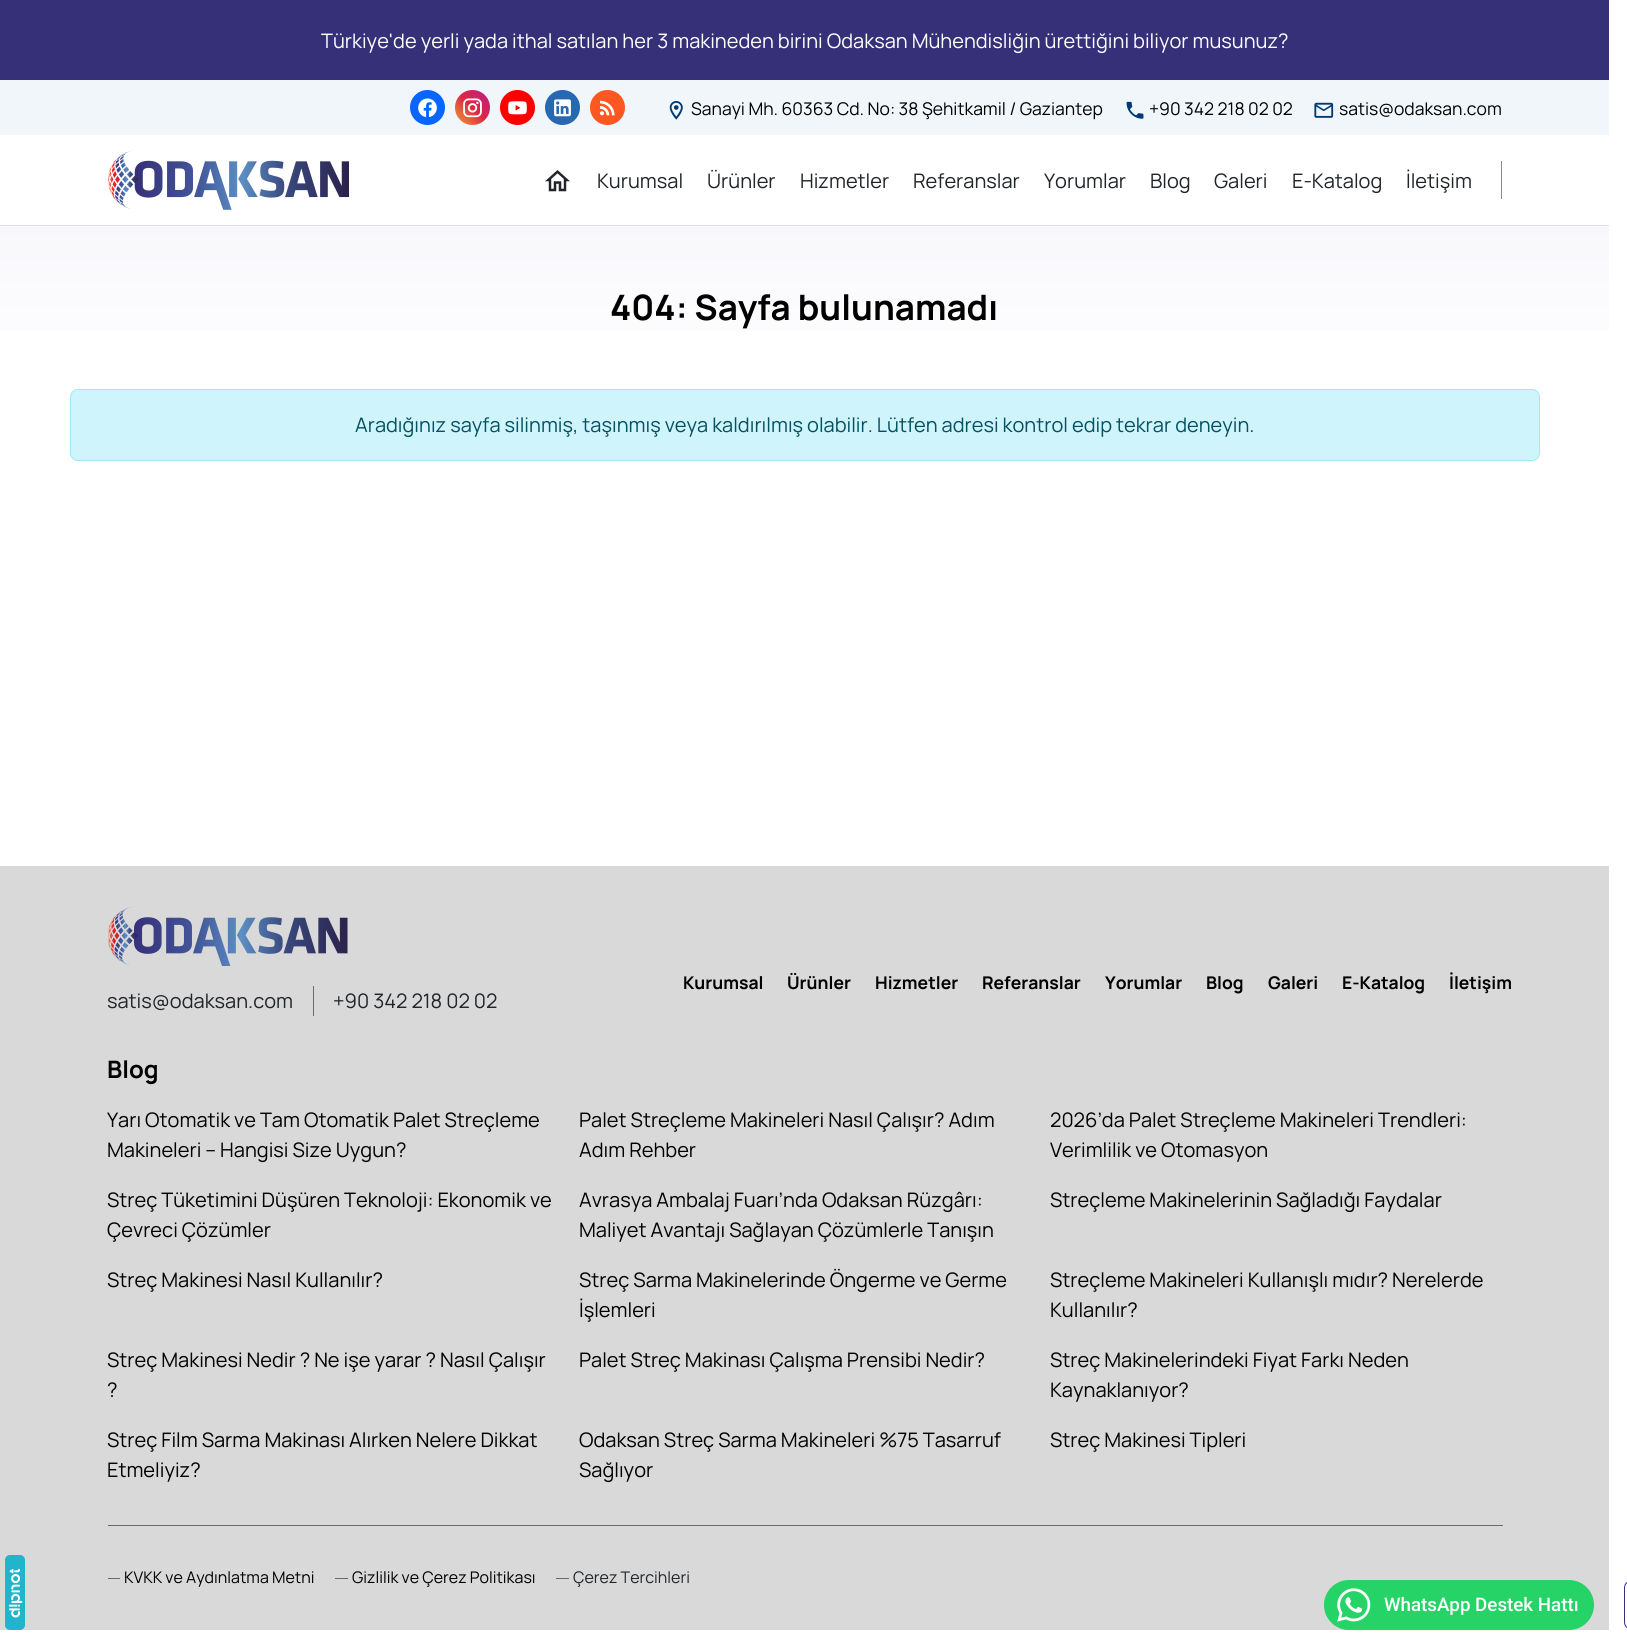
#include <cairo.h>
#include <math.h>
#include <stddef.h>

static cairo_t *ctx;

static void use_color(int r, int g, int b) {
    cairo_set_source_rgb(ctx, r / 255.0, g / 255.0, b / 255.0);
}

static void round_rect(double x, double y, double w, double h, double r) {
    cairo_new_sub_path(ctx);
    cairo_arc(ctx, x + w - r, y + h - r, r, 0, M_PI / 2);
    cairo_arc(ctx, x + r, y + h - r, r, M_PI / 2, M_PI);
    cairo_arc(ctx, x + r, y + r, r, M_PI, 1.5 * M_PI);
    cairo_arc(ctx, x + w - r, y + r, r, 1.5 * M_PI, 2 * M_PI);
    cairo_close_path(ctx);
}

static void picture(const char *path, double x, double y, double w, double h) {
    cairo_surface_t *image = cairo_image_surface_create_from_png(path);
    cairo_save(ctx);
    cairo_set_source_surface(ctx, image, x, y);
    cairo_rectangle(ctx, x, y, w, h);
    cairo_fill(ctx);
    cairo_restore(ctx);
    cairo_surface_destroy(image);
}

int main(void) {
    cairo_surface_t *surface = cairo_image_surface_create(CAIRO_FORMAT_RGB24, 1627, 1644);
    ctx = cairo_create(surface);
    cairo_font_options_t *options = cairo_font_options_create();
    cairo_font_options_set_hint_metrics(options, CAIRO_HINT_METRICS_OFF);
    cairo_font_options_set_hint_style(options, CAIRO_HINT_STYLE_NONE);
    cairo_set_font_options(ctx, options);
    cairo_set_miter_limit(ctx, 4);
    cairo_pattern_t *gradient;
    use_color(255, 255, 255);
    cairo_paint(ctx);
    use_color(54, 48, 121);
    cairo_rectangle(ctx, 0, 0, 1609, 80);
    cairo_fill(ctx);
    cairo_select_font_face(ctx, "Manrope", CAIRO_FONT_SLANT_NORMAL, CAIRO_FONT_WEIGHT_NORMAL);
    cairo_set_font_size(ctx, 20);
    use_color(255, 255, 255);
    cairo_move_to(ctx, 321, 48);
    cairo_show_text(ctx, "Türkiye'de yerli yada ithal satılan her 3 makineden birini Odaksan Mühendisliğin ürettiğini biliyor musunuz?");
    use_color(241, 246, 250);
    cairo_rectangle(ctx, 0, 80, 1609, 55);
    cairo_fill(ctx);
    use_color(8, 102, 255);
    cairo_arc(ctx, 427.5, 107.5, 17.5, 0, 2 * M_PI);
    cairo_fill(ctx);
    picture("img1.png", 418, 98, 19, 20);
    gradient = cairo_pattern_create_linear(455, 125, 490, 90);
    cairo_pattern_add_color_stop_rgba(gradient, 0, 0.941, 0.58, 0.2, 1);
    cairo_pattern_add_color_stop_rgba(gradient, 0.25, 0.902, 0.408, 0.235, 1);
    cairo_pattern_add_color_stop_rgba(gradient, 0.5, 0.863, 0.153, 0.263, 1);
    cairo_pattern_add_color_stop_rgba(gradient, 0.75, 0.8, 0.137, 0.4, 1);
    cairo_pattern_add_color_stop_rgba(gradient, 1, 0.737, 0.094, 0.533, 1);
    cairo_set_source(ctx, gradient);
    cairo_pattern_destroy(gradient);
    cairo_arc(ctx, 472.5, 107.5, 17.5, 0, 2 * M_PI);
    cairo_fill(ctx);
    picture("img2.png", 463, 98, 19, 20);
    use_color(255, 0, 0);
    cairo_arc(ctx, 517.5, 107.5, 17.5, 0, 2 * M_PI);
    cairo_fill(ctx);
    picture("img3.png", 508, 101, 19, 14);
    use_color(40, 103, 178);
    cairo_arc(ctx, 562.5, 107.5, 17.5, 0, 2 * M_PI);
    cairo_fill(ctx);
    picture("img4.png", 554, 99, 17, 18);
    use_color(255, 87, 34);
    cairo_arc(ctx, 607.5, 107.5, 17.5, 0, 2 * M_PI);
    cairo_fill(ctx);
    picture("img5.png", 600, 100, 15, 16);
    picture("img6.png", 669, 101, 14, 19);
    cairo_set_font_size(ctx, 17.5);
    use_color(0, 0, 0);
    cairo_move_to(ctx, 691, 115);
    cairo_show_text(ctx, "Sanayi Mh. 60363 Cd. No: 38 Şehitkamil / Gaziantep");
    picture("img7.png", 1126, 101, 18, 18);
    cairo_move_to(ctx, 1149, 115);
    cairo_show_text(ctx, "+90 342 218 02 02");
    picture("img8.png", 1314, 102, 20, 16);
    cairo_move_to(ctx, 1339, 115);
    cairo_show_text(ctx, "satis@odaksan.com");
    use_color(222, 226, 230);
    cairo_rectangle(ctx, 0, 225, 1609, 1);
    cairo_fill(ctx);
    picture("img9.png", 108, 150, 241, 60);
    picture("img10.png", 545, 170, 25, 22);
    cairo_set_font_size(ctx, 20);
    use_color(33, 37, 41);
    cairo_move_to(ctx, 597, 188);
    cairo_show_text(ctx, "Kurumsal");
    cairo_move_to(ctx, 707, 188);
    cairo_show_text(ctx, "Ürünler");
    cairo_move_to(ctx, 800, 188);
    cairo_show_text(ctx, "Hizmetler");
    cairo_move_to(ctx, 913, 188);
    cairo_show_text(ctx, "Referanslar");
    cairo_move_to(ctx, 1044, 188);
    cairo_show_text(ctx, "Yorumlar");
    cairo_move_to(ctx, 1150, 188);
    cairo_show_text(ctx, "Blog");
    cairo_move_to(ctx, 1214, 188);
    cairo_show_text(ctx, "Galeri");
    cairo_move_to(ctx, 1292, 188);
    cairo_show_text(ctx, "E-Katalog");
    cairo_move_to(ctx, 1406, 188);
    cairo_show_text(ctx, "İletişim");
    use_color(139, 139, 139);
    cairo_rectangle(ctx, 1501, 161, 1, 38);
    cairo_fill(ctx);
    gradient = cairo_pattern_create_linear(804, 389, 804, 226);
    cairo_pattern_add_color_stop_rgba(gradient, 0, 1, 1, 1, 1);
    cairo_pattern_add_color_stop_rgba(gradient, 1, 0.973, 0.973, 0.988, 1);
    cairo_set_source(ctx, gradient);
    cairo_pattern_destroy(gradient);
    cairo_rectangle(ctx, 0, 226, 1609, 105);
    cairo_fill(ctx);
    cairo_select_font_face(ctx, "Manrope", CAIRO_FONT_SLANT_NORMAL, CAIRO_FONT_WEIGHT_BOLD);
    cairo_set_font_size(ctx, 35);
    use_color(0, 0, 0);
    cairo_move_to(ctx, 610, 320);
    cairo_show_text(ctx, "404: Sayfa bulunamadı");
    use_color(207, 244, 252);
    round_rect(70.5, 389.5, 1469, 71, 7.5);
    cairo_fill_preserve(ctx);
    use_color(158, 234, 249);
    cairo_set_line_width(ctx, 1);
    cairo_stroke(ctx);
    cairo_select_font_face(ctx, "Manrope", CAIRO_FONT_SLANT_NORMAL, CAIRO_FONT_WEIGHT_NORMAL);
    cairo_set_font_size(ctx, 20);
    use_color(5, 81, 96);
    cairo_move_to(ctx, 355, 432);
    cairo_show_text(ctx, "Aradığınız sayfa silinmiş, taşınmış veya kaldırılmış olabilir. Lütfen adresi kontrol edip tekrar deneyin.");
    use_color(217, 217, 217);
    cairo_rectangle(ctx, 0, 866, 1609, 764);
    cairo_fill(ctx);
    use_color(34, 180, 205);
    round_rect(5, 1555, 20, 75, 5);
    cairo_fill(ctx);
    picture("img11.png", 9, 1569, 14, 49);
    cairo_select_font_face(ctx, "Manrope", CAIRO_FONT_SLANT_NORMAL, CAIRO_FONT_WEIGHT_BOLD);
    cairo_set_font_size(ctx, 17.5);
    use_color(0, 0, 0);
    cairo_move_to(ctx, 683, 989);
    cairo_show_text(ctx, "Kurumsal");
    cairo_move_to(ctx, 787, 989);
    cairo_show_text(ctx, "Ürünler");
    cairo_move_to(ctx, 875, 989);
    cairo_show_text(ctx, "Hizmetler");
    cairo_move_to(ctx, 982, 989);
    cairo_show_text(ctx, "Referanslar");
    cairo_move_to(ctx, 1105, 989);
    cairo_show_text(ctx, "Yorumlar");
    cairo_move_to(ctx, 1206, 989);
    cairo_show_text(ctx, "Blog");
    cairo_move_to(ctx, 1268, 989);
    cairo_show_text(ctx, "Galeri");
    cairo_move_to(ctx, 1342, 989);
    cairo_show_text(ctx, "E-Katalog");
    cairo_move_to(ctx, 1449, 989);
    cairo_show_text(ctx, "İletişim");
    picture("img12.png", 108, 906, 240, 60);
    cairo_select_font_face(ctx, "Manrope", CAIRO_FONT_SLANT_NORMAL, CAIRO_FONT_WEIGHT_NORMAL);
    cairo_set_font_size(ctx, 20);
    use_color(33, 37, 41);
    cairo_move_to(ctx, 107, 1008);
    cairo_show_text(ctx, "satis@odaksan.com");
    use_color(106, 106, 106);
    cairo_rectangle(ctx, 313, 986, 1, 30);
    cairo_fill(ctx);
    use_color(33, 37, 41);
    cairo_move_to(ctx, 333, 1008);
    cairo_show_text(ctx, "+90 342 218 02 02");
    cairo_select_font_face(ctx, "Manrope", CAIRO_FONT_SLANT_NORMAL, CAIRO_FONT_WEIGHT_BOLD);
    cairo_set_font_size(ctx, 24);
    use_color(0, 0, 0);
    cairo_move_to(ctx, 107, 1078);
    cairo_show_text(ctx, "Blog");
    cairo_select_font_face(ctx, "Manrope", CAIRO_FONT_SLANT_NORMAL, CAIRO_FONT_WEIGHT_NORMAL);
    cairo_set_font_size(ctx, 20);
    cairo_move_to(ctx, 107, 1127);
    cairo_show_text(ctx, "Yarı Otomatik ve Tam Otomatik Palet Streçleme");
    cairo_move_to(ctx, 107, 1157);
    cairo_show_text(ctx, "Makineleri – Hangisi Size Uygun?");
    cairo_move_to(ctx, 579, 1127);
    cairo_show_text(ctx, "Palet Streçleme Makineleri Nasıl Çalışır? Adım");
    cairo_move_to(ctx, 579, 1157);
    cairo_show_text(ctx, "Adım Rehber");
    cairo_move_to(ctx, 1050, 1127);
    cairo_show_text(ctx, "2026’da Palet Streçleme Makineleri Trendleri:");
    cairo_move_to(ctx, 1050, 1157);
    cairo_show_text(ctx, "Verimlilik ve Otomasyon");
    cairo_move_to(ctx, 107, 1207);
    cairo_show_text(ctx, "Streç Tüketimini Düşüren Teknoloji: Ekonomik ve");
    cairo_move_to(ctx, 107, 1237);
    cairo_show_text(ctx, "Çevreci Çözümler");
    cairo_move_to(ctx, 579, 1207);
    cairo_show_text(ctx, "Avrasya Ambalaj Fuarı’nda Odaksan Rüzgârı:");
    cairo_move_to(ctx, 579, 1237);
    cairo_show_text(ctx, "Maliyet Avantajı Sağlayan Çözümlerle Tanışın");
    cairo_move_to(ctx, 1050, 1207);
    cairo_show_text(ctx, "Streçleme Makinelerinin Sağladığı Faydalar");
    cairo_move_to(ctx, 107, 1287);
    cairo_show_text(ctx, "Streç Makinesi Nasıl Kullanılır?");
    cairo_move_to(ctx, 579, 1287);
    cairo_show_text(ctx, "Streç Sarma Makinelerinde Öngerme ve Germe");
    cairo_move_to(ctx, 579, 1317);
    cairo_show_text(ctx, "İşlemleri");
    cairo_move_to(ctx, 1050, 1287);
    cairo_show_text(ctx, "Streçleme Makineleri Kullanışlı mıdır? Nerelerde");
    cairo_move_to(ctx, 1050, 1317);
    cairo_show_text(ctx, "Kullanılır?");
    cairo_move_to(ctx, 107, 1367);
    cairo_show_text(ctx, "Streç Makinesi Nedir ? Ne işe yarar ? Nasıl Çalışır");
    cairo_move_to(ctx, 107, 1397);
    cairo_show_text(ctx, "?");
    cairo_move_to(ctx, 579, 1367);
    cairo_show_text(ctx, "Palet Streç Makinası Çalışma Prensibi Nedir?");
    cairo_move_to(ctx, 1050, 1367);
    cairo_show_text(ctx, "Streç Makinelerindeki Fiyat Farkı Neden");
    cairo_move_to(ctx, 1050, 1397);
    cairo_show_text(ctx, "Kaynaklanıyor?");
    cairo_move_to(ctx, 107, 1447);
    cairo_show_text(ctx, "Streç Film Sarma Makinası Alırken Nelere Dikkat");
    cairo_move_to(ctx, 107, 1477);
    cairo_show_text(ctx, "Etmeliyiz?");
    cairo_move_to(ctx, 579, 1447);
    cairo_show_text(ctx, "Odaksan Streç Sarma Makineleri %75 Tasarruf");
    cairo_move_to(ctx, 579, 1477);
    cairo_show_text(ctx, "Sağlıyor");
    cairo_move_to(ctx, 1050, 1447);
    cairo_show_text(ctx, "Streç Makinesi Tipleri");
    use_color(106, 106, 106);
    cairo_rectangle(ctx, 108, 1525, 1395, 1);
    cairo_fill(ctx);
    cairo_rectangle(ctx, 108, 1578, 12, 1);
    cairo_fill(ctx);
    cairo_set_font_size(ctx, 16);
    use_color(0, 0, 0);
    cairo_move_to(ctx, 124, 1583);
    cairo_show_text(ctx, "KVKK ve Aydınlatma Metni");
    use_color(106, 106, 106);
    cairo_rectangle(ctx, 335, 1578, 13, 1);
    cairo_fill(ctx);
    use_color(0, 0, 0);
    cairo_move_to(ctx, 352, 1583);
    cairo_show_text(ctx, "Gizlilik ve Çerez Politikası");
    use_color(106, 106, 106);
    cairo_rectangle(ctx, 556, 1578, 13, 1);
    cairo_fill(ctx);
    use_color(33, 37, 41);
    cairo_move_to(ctx, 573, 1583);
    cairo_show_text(ctx, "Çerez Tercihleri");
    round_rect(1624.5, 1580.5, 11, 49, 7.5);
    use_color(54, 48, 121);
    cairo_stroke(ctx);
    use_color(37, 211, 102);
    round_rect(1324, 1580, 270, 50, 25);
    cairo_fill(ctx);
    picture("img13.png", 1337, 1588, 34, 34);
    cairo_select_font_face(ctx, "Roboto Medium", CAIRO_FONT_SLANT_NORMAL, CAIRO_FONT_WEIGHT_NORMAL);
    cairo_set_font_size(ctx, 18.75);
    use_color(255, 255, 255);
    cairo_move_to(ctx, 1384, 1611);
    cairo_show_text(ctx, "WhatsApp Destek Hattı");
    cairo_surface_write_to_png(surface, "result.png");
    cairo_font_options_destroy(options);
    cairo_destroy(ctx);
    cairo_surface_destroy(surface);
    return 0;
}
